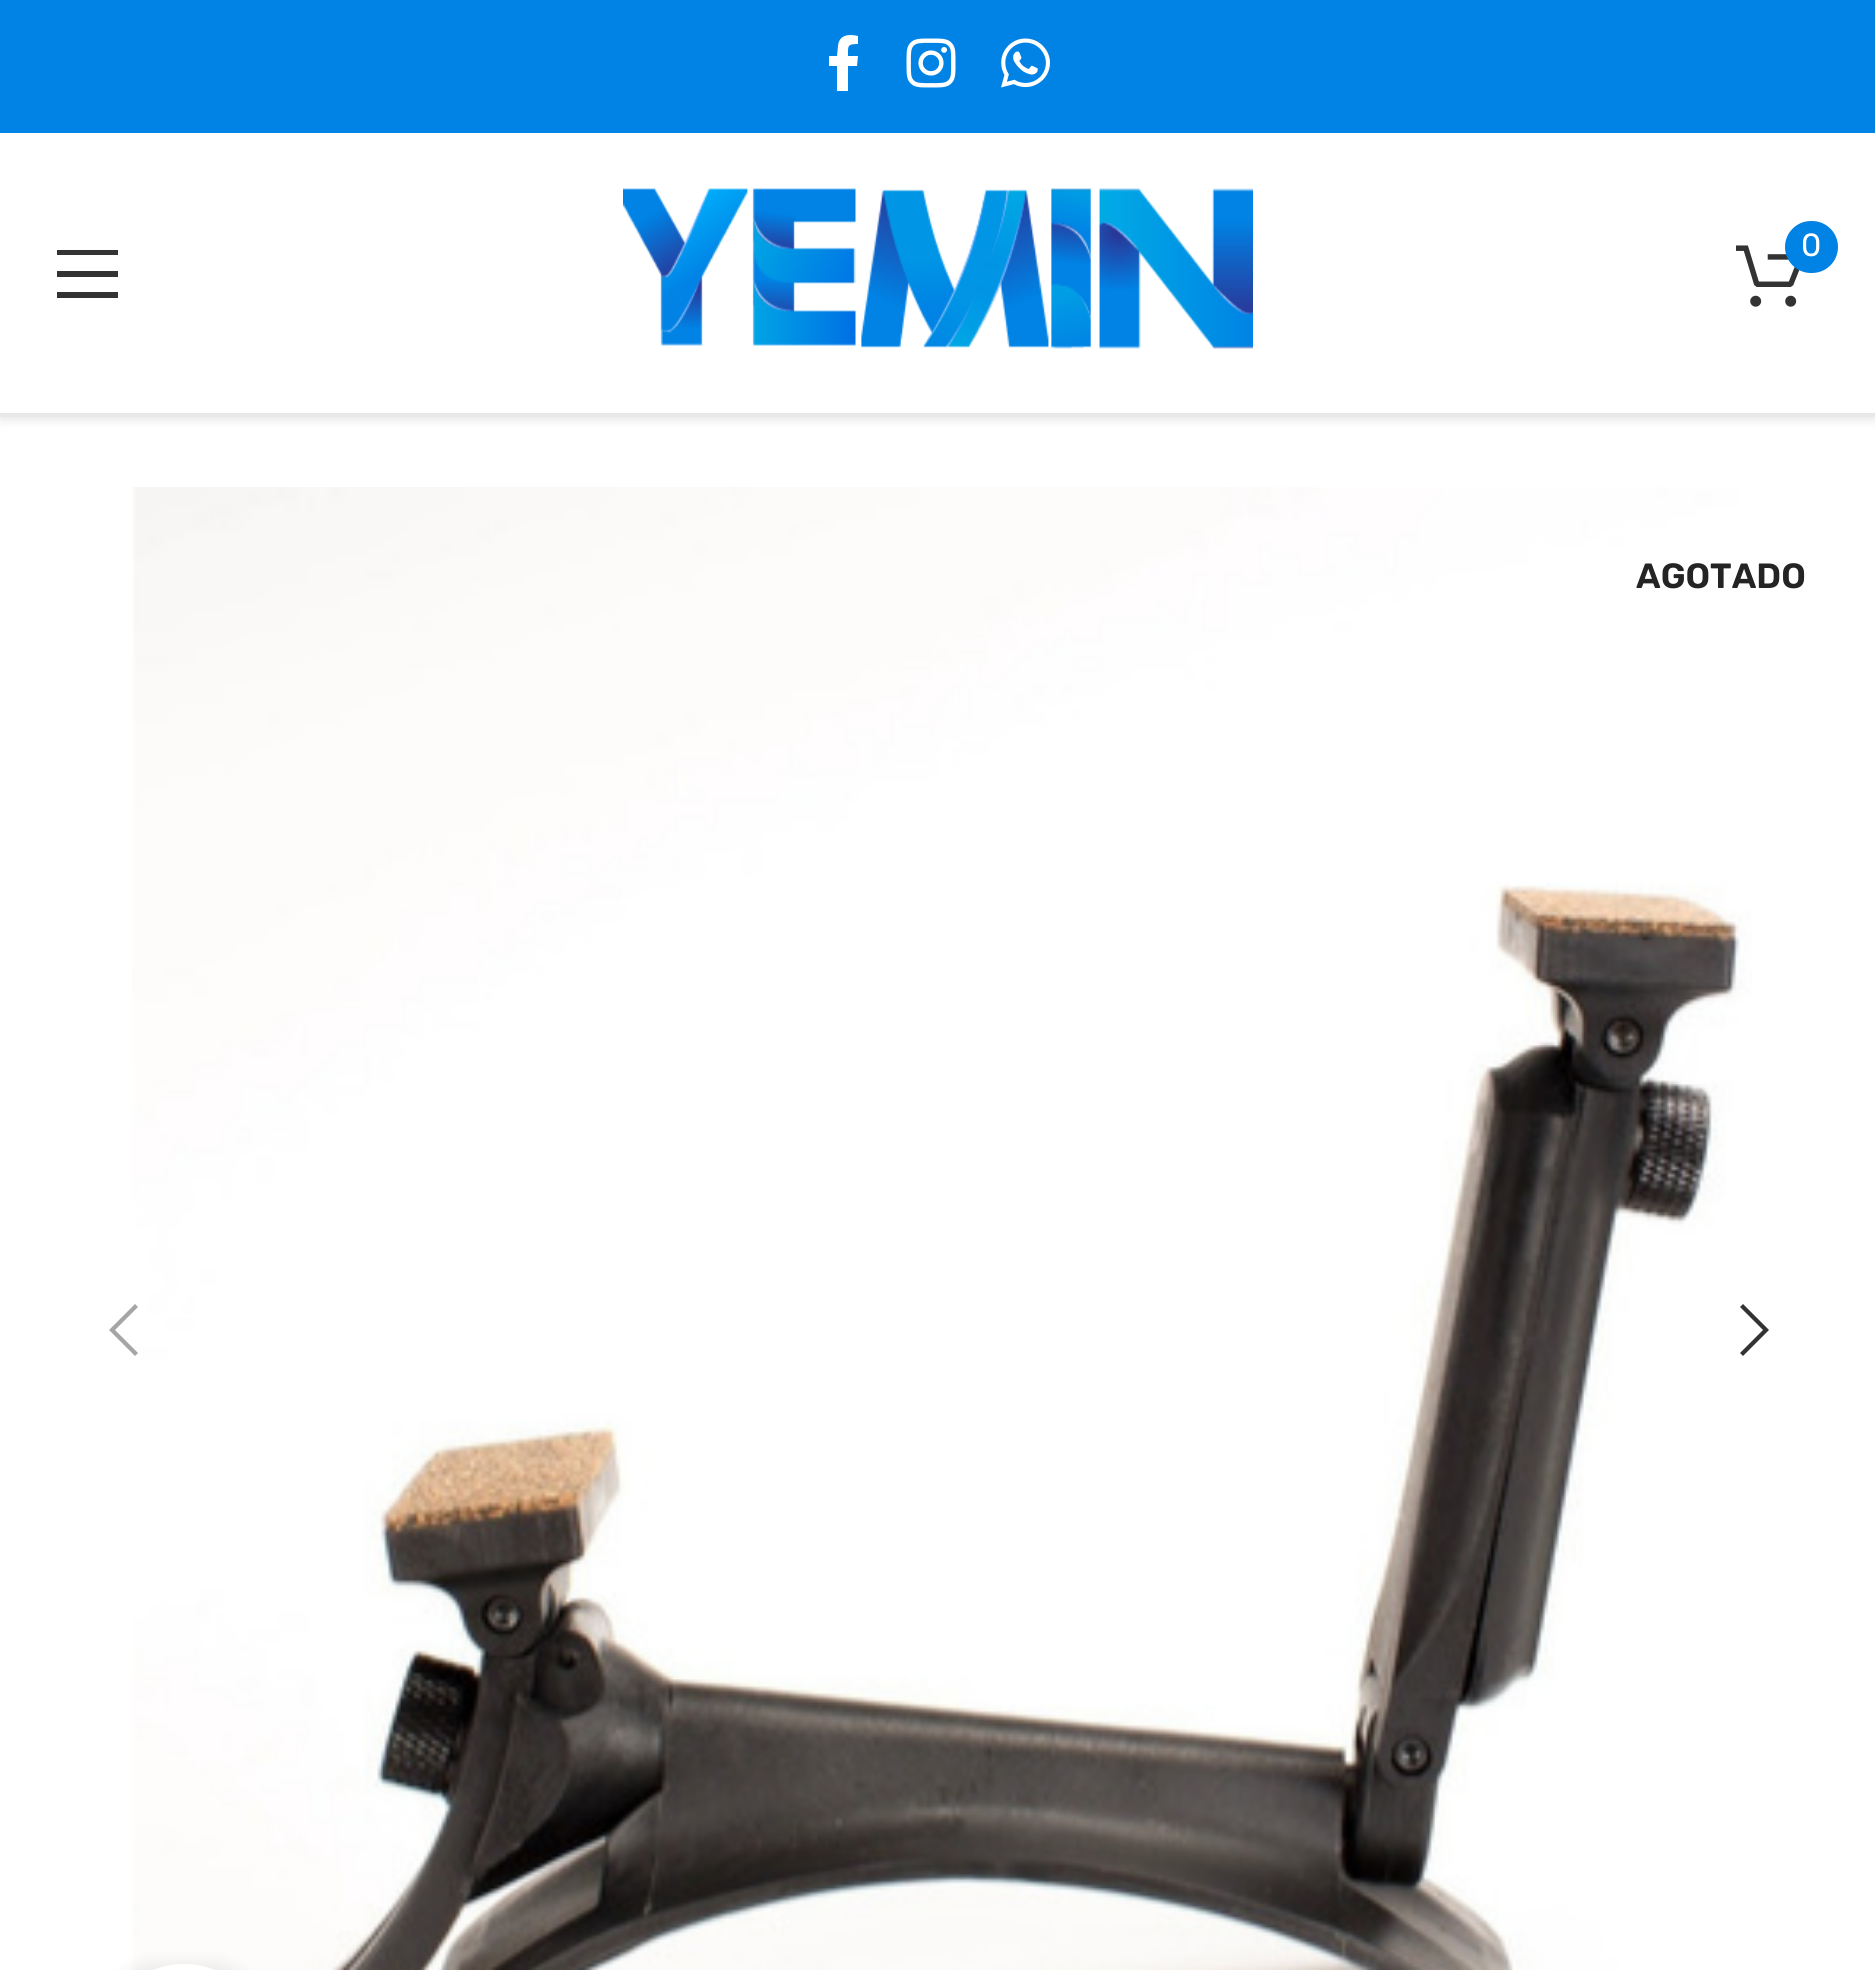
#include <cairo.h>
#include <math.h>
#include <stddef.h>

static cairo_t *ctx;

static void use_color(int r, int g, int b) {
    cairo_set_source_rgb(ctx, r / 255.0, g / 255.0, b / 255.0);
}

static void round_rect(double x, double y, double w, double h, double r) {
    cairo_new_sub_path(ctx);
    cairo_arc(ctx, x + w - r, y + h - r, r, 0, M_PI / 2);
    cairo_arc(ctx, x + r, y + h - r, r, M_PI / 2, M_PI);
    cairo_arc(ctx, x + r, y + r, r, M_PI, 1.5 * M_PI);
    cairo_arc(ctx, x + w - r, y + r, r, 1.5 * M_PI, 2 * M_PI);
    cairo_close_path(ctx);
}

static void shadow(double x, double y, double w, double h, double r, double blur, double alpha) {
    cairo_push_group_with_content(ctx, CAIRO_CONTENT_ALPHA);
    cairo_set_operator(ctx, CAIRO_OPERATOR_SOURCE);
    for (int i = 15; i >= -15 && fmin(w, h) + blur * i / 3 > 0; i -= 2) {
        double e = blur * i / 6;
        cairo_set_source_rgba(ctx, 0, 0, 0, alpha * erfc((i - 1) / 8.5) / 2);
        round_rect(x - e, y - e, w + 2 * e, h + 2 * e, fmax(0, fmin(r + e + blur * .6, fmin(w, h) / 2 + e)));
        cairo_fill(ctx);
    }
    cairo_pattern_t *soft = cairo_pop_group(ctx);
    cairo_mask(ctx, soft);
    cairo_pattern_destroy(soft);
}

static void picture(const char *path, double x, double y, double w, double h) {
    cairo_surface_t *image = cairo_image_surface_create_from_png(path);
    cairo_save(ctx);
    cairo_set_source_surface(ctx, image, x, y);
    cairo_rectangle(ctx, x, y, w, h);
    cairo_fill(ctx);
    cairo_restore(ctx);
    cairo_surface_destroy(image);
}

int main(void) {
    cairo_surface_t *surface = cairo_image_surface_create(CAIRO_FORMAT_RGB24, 1875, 1970);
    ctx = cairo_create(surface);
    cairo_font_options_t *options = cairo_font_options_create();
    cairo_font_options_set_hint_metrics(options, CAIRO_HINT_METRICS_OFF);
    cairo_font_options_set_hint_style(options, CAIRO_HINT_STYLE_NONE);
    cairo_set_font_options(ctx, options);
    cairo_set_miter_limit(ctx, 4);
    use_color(255, 255, 255);
    cairo_paint(ctx);
    use_color(0, 0, 0);
    shadow(0, 4, 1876, 416, 0, 5, 0.1);
    use_color(0, 131, 229);
    cairo_rectangle(ctx, 0, 0, 1875, 133);
    cairo_fill(ctx);
    use_color(255, 255, 255);
    cairo_new_path(ctx);
    cairo_move_to(ctx, 857, 66);
    cairo_line_to(ctx, 858, 56);
    cairo_line_to(ctx, 848, 56);
    cairo_curve_to(ctx, 848, 46, 847, 44, 858, 44);
    cairo_line_to(ctx, 858, 36);
    cairo_curve_to(ctx, 850, 34, 839, 34, 838, 46);
    cairo_line_to(ctx, 837, 56);
    cairo_line_to(ctx, 829, 56);
    cairo_line_to(ctx, 829, 66);
    cairo_line_to(ctx, 837, 66);
    cairo_line_to(ctx, 837, 91);
    cairo_line_to(ctx, 848, 91);
    cairo_line_to(ctx, 848, 66);
    cairo_close_path(ctx);
    cairo_fill(ctx);
    picture("img1.png", 906, 38, 50, 50);
    picture("img2.png", 1001, 38, 49, 50);
    cairo_rectangle(ctx, 0, 133, 1875, 280);
    cairo_fill(ctx);
    use_color(232, 232, 232);
    cairo_rectangle(ctx, 0, 413, 1875, 4);
    cairo_fill(ctx);
    picture("img3.png", 623, 188, 630, 161);
    picture("img4.png", 1736, 245, 64, 62);
    use_color(0, 131, 229);
    round_rect(1785, 221, 53, 52, 26);
    cairo_fill(ctx);
    cairo_select_font_face(ctx, "Rubik", CAIRO_FONT_SLANT_NORMAL, CAIRO_FONT_WEIGHT_NORMAL);
    cairo_set_font_size(ctx, 32);
    use_color(255, 255, 255);
    cairo_move_to(ctx, 1801, 256);
    cairo_show_text(ctx, "0");
    use_color(51, 51, 51);
    cairo_new_path(ctx);
    cairo_move_to(ctx, 57, 255);
    cairo_line_to(ctx, 118, 255);
    cairo_line_to(ctx, 118, 250);
    cairo_line_to(ctx, 57, 250);
    cairo_close_path(ctx);
    cairo_move_to(ctx, 57, 277);
    cairo_line_to(ctx, 118, 277);
    cairo_line_to(ctx, 118, 271);
    cairo_line_to(ctx, 57, 271);
    cairo_close_path(ctx);
    cairo_move_to(ctx, 57, 298);
    cairo_line_to(ctx, 118, 298);
    cairo_line_to(ctx, 118, 292);
    cairo_line_to(ctx, 57, 292);
    cairo_close_path(ctx);
    cairo_fill(ctx);
    picture("img5.png", 132, 487, 1620, 1483);
    cairo_select_font_face(ctx, "Rubik SemiBold", CAIRO_FONT_SLANT_NORMAL, CAIRO_FONT_WEIGHT_NORMAL);
    cairo_set_font_size(ctx, 35);
    use_color(36, 36, 36);
    cairo_move_to(ctx, 1636, 588);
    cairo_show_text(ctx, "AGOTADO");
    use_color(165, 165, 165);
    cairo_new_path(ctx);
    cairo_move_to(ctx, 138, 1307);
    cairo_line_to(ctx, 135, 1304);
    cairo_line_to(ctx, 109, 1330);
    cairo_line_to(ctx, 135, 1356);
    cairo_line_to(ctx, 138, 1353);
    cairo_line_to(ctx, 115, 1330);
    cairo_close_path(ctx);
    cairo_fill(ctx);
    use_color(51, 51, 51);
    cairo_new_path(ctx);
    cairo_move_to(ctx, 1740, 1307);
    cairo_line_to(ctx, 1763, 1330);
    cairo_line_to(ctx, 1740, 1353);
    cairo_line_to(ctx, 1743, 1356);
    cairo_line_to(ctx, 1769, 1330);
    cairo_line_to(ctx, 1743, 1304);
    cairo_close_path(ctx);
    cairo_fill(ctx);
    use_color(0, 0, 0);
    shadow(105, 1964, 158, 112, 78.5, 9, 0.08);
    use_color(255, 255, 255);
    round_rect(105, 1964, 158, 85, 78.5);
    cairo_fill(ctx);
    cairo_surface_write_to_png(surface, "result.png");
    cairo_font_options_destroy(options);
    cairo_destroy(ctx);
    cairo_surface_destroy(surface);
    return 0;
}
